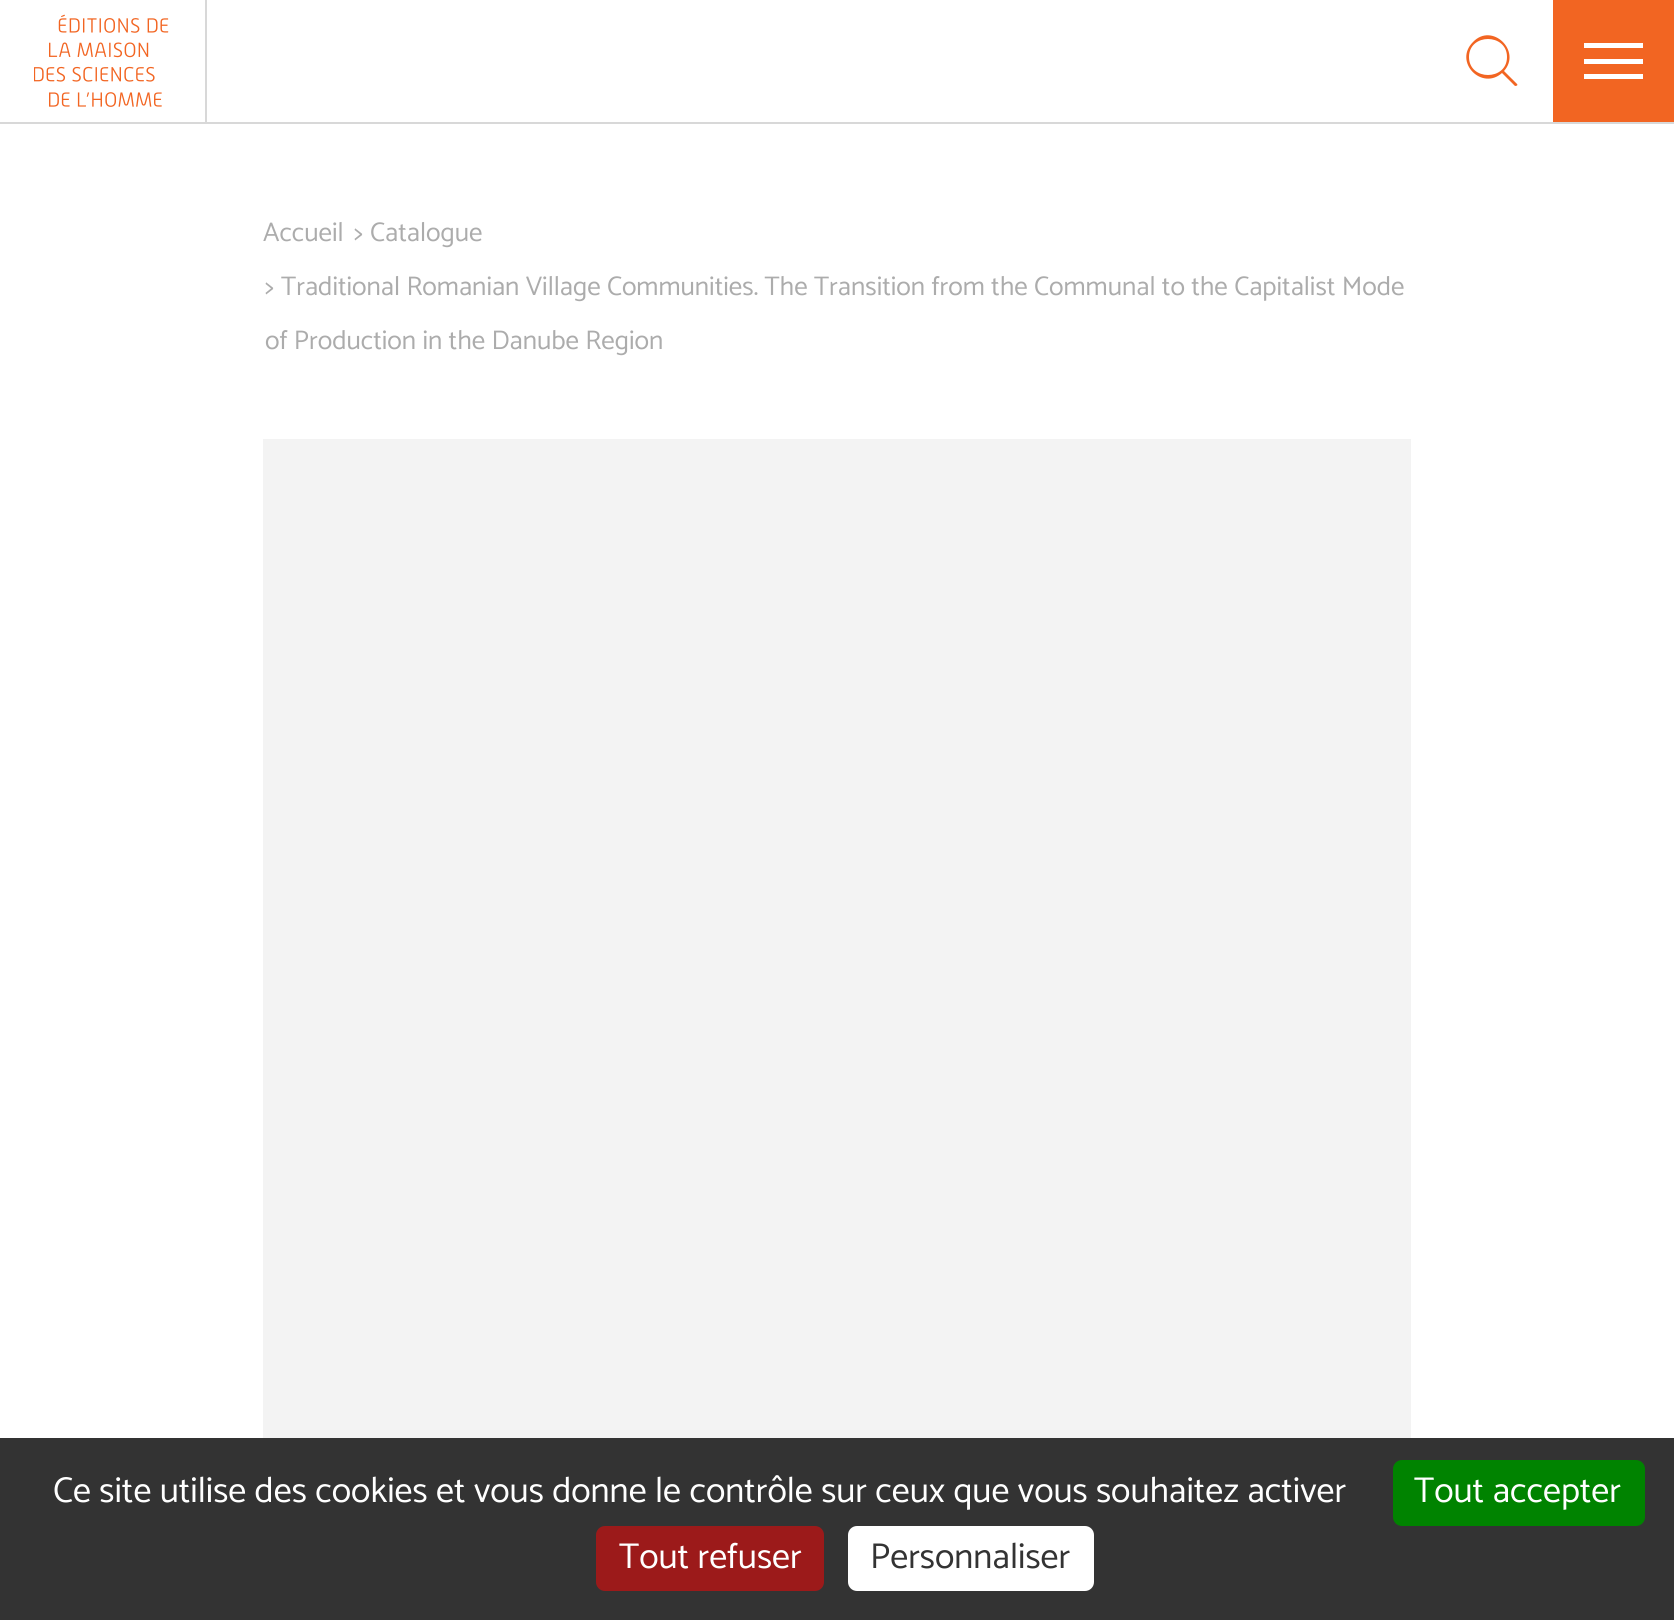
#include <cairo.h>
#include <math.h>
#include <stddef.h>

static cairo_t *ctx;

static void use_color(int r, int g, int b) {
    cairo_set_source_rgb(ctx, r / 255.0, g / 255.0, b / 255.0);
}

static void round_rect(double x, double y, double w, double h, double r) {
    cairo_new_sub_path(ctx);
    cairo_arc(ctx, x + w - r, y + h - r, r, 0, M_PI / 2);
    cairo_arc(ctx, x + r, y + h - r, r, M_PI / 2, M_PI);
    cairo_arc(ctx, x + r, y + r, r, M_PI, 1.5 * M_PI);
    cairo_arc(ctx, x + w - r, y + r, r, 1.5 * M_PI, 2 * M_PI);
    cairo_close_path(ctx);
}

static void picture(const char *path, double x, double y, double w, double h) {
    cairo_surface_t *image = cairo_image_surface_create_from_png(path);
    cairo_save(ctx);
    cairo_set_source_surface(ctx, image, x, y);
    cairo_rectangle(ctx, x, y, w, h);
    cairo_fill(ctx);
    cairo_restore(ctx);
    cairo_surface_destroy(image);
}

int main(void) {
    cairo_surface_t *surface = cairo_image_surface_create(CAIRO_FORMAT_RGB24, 1674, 1620);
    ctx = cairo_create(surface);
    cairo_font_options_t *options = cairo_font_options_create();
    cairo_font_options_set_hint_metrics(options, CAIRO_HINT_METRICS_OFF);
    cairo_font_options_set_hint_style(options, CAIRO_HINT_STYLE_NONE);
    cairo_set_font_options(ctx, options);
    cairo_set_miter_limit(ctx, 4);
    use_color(255, 255, 255);
    cairo_paint(ctx);
    use_color(216, 216, 216);
    cairo_rectangle(ctx, 0, 122, 1674, 2);
    cairo_fill(ctx);
    cairo_rectangle(ctx, 205, 0, 2, 122);
    cairo_fill(ctx);
    picture("img1.png", 34, 14, 135, 93);
    use_color(242, 101, 34);
    cairo_new_path(ctx);
    cairo_move_to(ctx, 1517, 84);
    cairo_line_to(ctx, 1504, 71);
    cairo_curve_to(ctx, 1522, 51, 1492, 22, 1473, 42);
    cairo_curve_to(ctx, 1453, 62, 1482, 91, 1502, 73);
    cairo_line_to(ctx, 1515, 86);
    cairo_curve_to(ctx, 1517, 86, 1518, 85, 1517, 84);
    cairo_close_path(ctx);
    cairo_move_to(ctx, 1469, 57);
    cairo_curve_to(ctx, 1469, 33, 1507, 33, 1507, 57);
    cairo_curve_to(ctx, 1507, 81, 1469, 81, 1469, 57);
    cairo_close_path(ctx);
    cairo_fill(ctx);
    cairo_rectangle(ctx, 1553, 0, 121, 122);
    cairo_fill(ctx);
    use_color(255, 255, 255);
    cairo_rectangle(ctx, 1584, 59, 59, 5);
    cairo_fill(ctx);
    cairo_rectangle(ctx, 1584, 43, 59, 5);
    cairo_fill(ctx);
    cairo_rectangle(ctx, 1584, 74, 59, 5);
    cairo_fill(ctx);
    cairo_select_font_face(ctx, "Catamaran Thin", CAIRO_FONT_SLANT_NORMAL, CAIRO_FONT_WEIGHT_NORMAL);
    cairo_set_font_size(ctx, 27);
    use_color(172, 172, 172);
    cairo_move_to(ctx, 263, 241);
    cairo_show_text(ctx, "Accueil");
    cairo_move_to(ctx, 354, 241);
    cairo_show_text(ctx, ">");
    cairo_move_to(ctx, 370, 241);
    cairo_show_text(ctx, "Catalogue");
    cairo_move_to(ctx, 265, 295);
    cairo_show_text(ctx, ">");
    cairo_move_to(ctx, 281, 295);
    cairo_show_text(ctx, "Traditional Romanian Village Communities. The Transition from the Communal to the Capitalist Mode");
    cairo_move_to(ctx, 265, 349);
    cairo_show_text(ctx, "of Production in the Danube Region");
    use_color(243, 243, 243);
    cairo_rectangle(ctx, 263, 439, 1148, 999);
    cairo_fill(ctx);
    use_color(51, 51, 51);
    cairo_rectangle(ctx, 0, 1438, 1674, 182);
    cairo_fill(ctx);
    cairo_set_font_size(ctx, 36);
    use_color(255, 255, 255);
    cairo_move_to(ctx, 53, 1502);
    cairo_show_text(ctx, "Ce site utilise des cookies et vous donne le contrôle sur ceux que vous souhaitez activer");
    use_color(0, 131, 0);
    round_rect(1393, 1460, 252, 66, 9);
    cairo_fill(ctx);
    use_color(255, 255, 255);
    cairo_move_to(ctx, 1414, 1502);
    cairo_show_text(ctx, "Tout accepter");
    use_color(156, 26, 26);
    round_rect(596, 1526, 228, 65, 9);
    cairo_fill(ctx);
    use_color(255, 255, 255);
    cairo_move_to(ctx, 619, 1568);
    cairo_show_text(ctx, "Tout refuser");
    round_rect(848, 1526, 246, 65, 9);
    cairo_fill(ctx);
    use_color(51, 51, 51);
    cairo_move_to(ctx, 870, 1568);
    cairo_show_text(ctx, "Personnaliser");
    cairo_surface_write_to_png(surface, "result.png");
    cairo_font_options_destroy(options);
    cairo_destroy(ctx);
    cairo_surface_destroy(surface);
    return 0;
}
